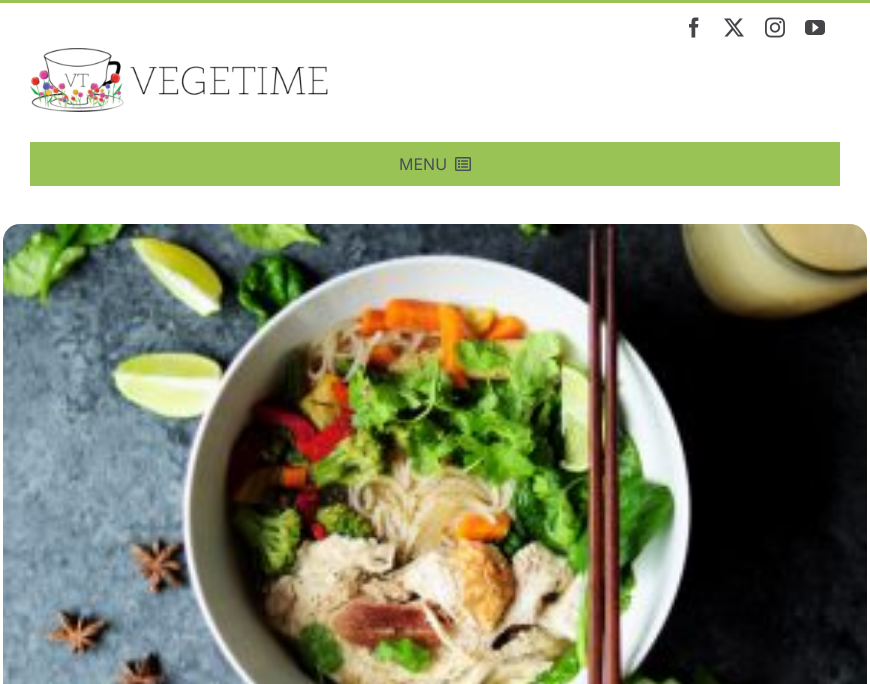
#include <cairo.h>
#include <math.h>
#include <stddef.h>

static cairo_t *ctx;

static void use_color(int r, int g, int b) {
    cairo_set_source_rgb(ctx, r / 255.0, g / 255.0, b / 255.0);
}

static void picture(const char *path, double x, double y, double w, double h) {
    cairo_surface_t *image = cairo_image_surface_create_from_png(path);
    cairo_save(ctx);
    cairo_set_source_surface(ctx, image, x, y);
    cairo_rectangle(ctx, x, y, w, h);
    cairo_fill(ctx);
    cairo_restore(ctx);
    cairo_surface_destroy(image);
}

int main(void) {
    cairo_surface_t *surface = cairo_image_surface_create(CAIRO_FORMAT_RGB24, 870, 684);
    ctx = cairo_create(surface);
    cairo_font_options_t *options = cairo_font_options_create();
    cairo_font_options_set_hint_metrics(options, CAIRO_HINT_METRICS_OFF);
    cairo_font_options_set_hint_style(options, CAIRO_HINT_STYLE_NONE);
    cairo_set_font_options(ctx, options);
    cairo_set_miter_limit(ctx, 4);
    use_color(255, 255, 255);
    cairo_paint(ctx);
    use_color(153, 195, 85);
    cairo_rectangle(ctx, 0, 0, 870, 3);
    cairo_fill(ctx);
    picture("img1.png", 689, 17, 10, 21);
    picture("img2.png", 724, 18, 20, 19);
    picture("img3.png", 765, 17, 20, 21);
    picture("img4.png", 805, 20, 20, 15);
    picture("img5.png", 30, 48, 298, 64);
    cairo_rectangle(ctx, 30, 142, 810, 44);
    cairo_fill(ctx);
    cairo_select_font_face(ctx, "Inter", CAIRO_FONT_SLANT_NORMAL, CAIRO_FONT_WEIGHT_NORMAL);
    cairo_set_font_size(ctx, 16);
    use_color(74, 78, 87);
    cairo_move_to(ctx, 399, 170);
    cairo_show_text(ctx, "MENU");
    picture("img6.png", 455, 157, 16, 14);
    picture("img7.png", 3, 224, 864, 460);
    cairo_surface_write_to_png(surface, "result.png");
    cairo_font_options_destroy(options);
    cairo_destroy(ctx);
    cairo_surface_destroy(surface);
    return 0;
}
